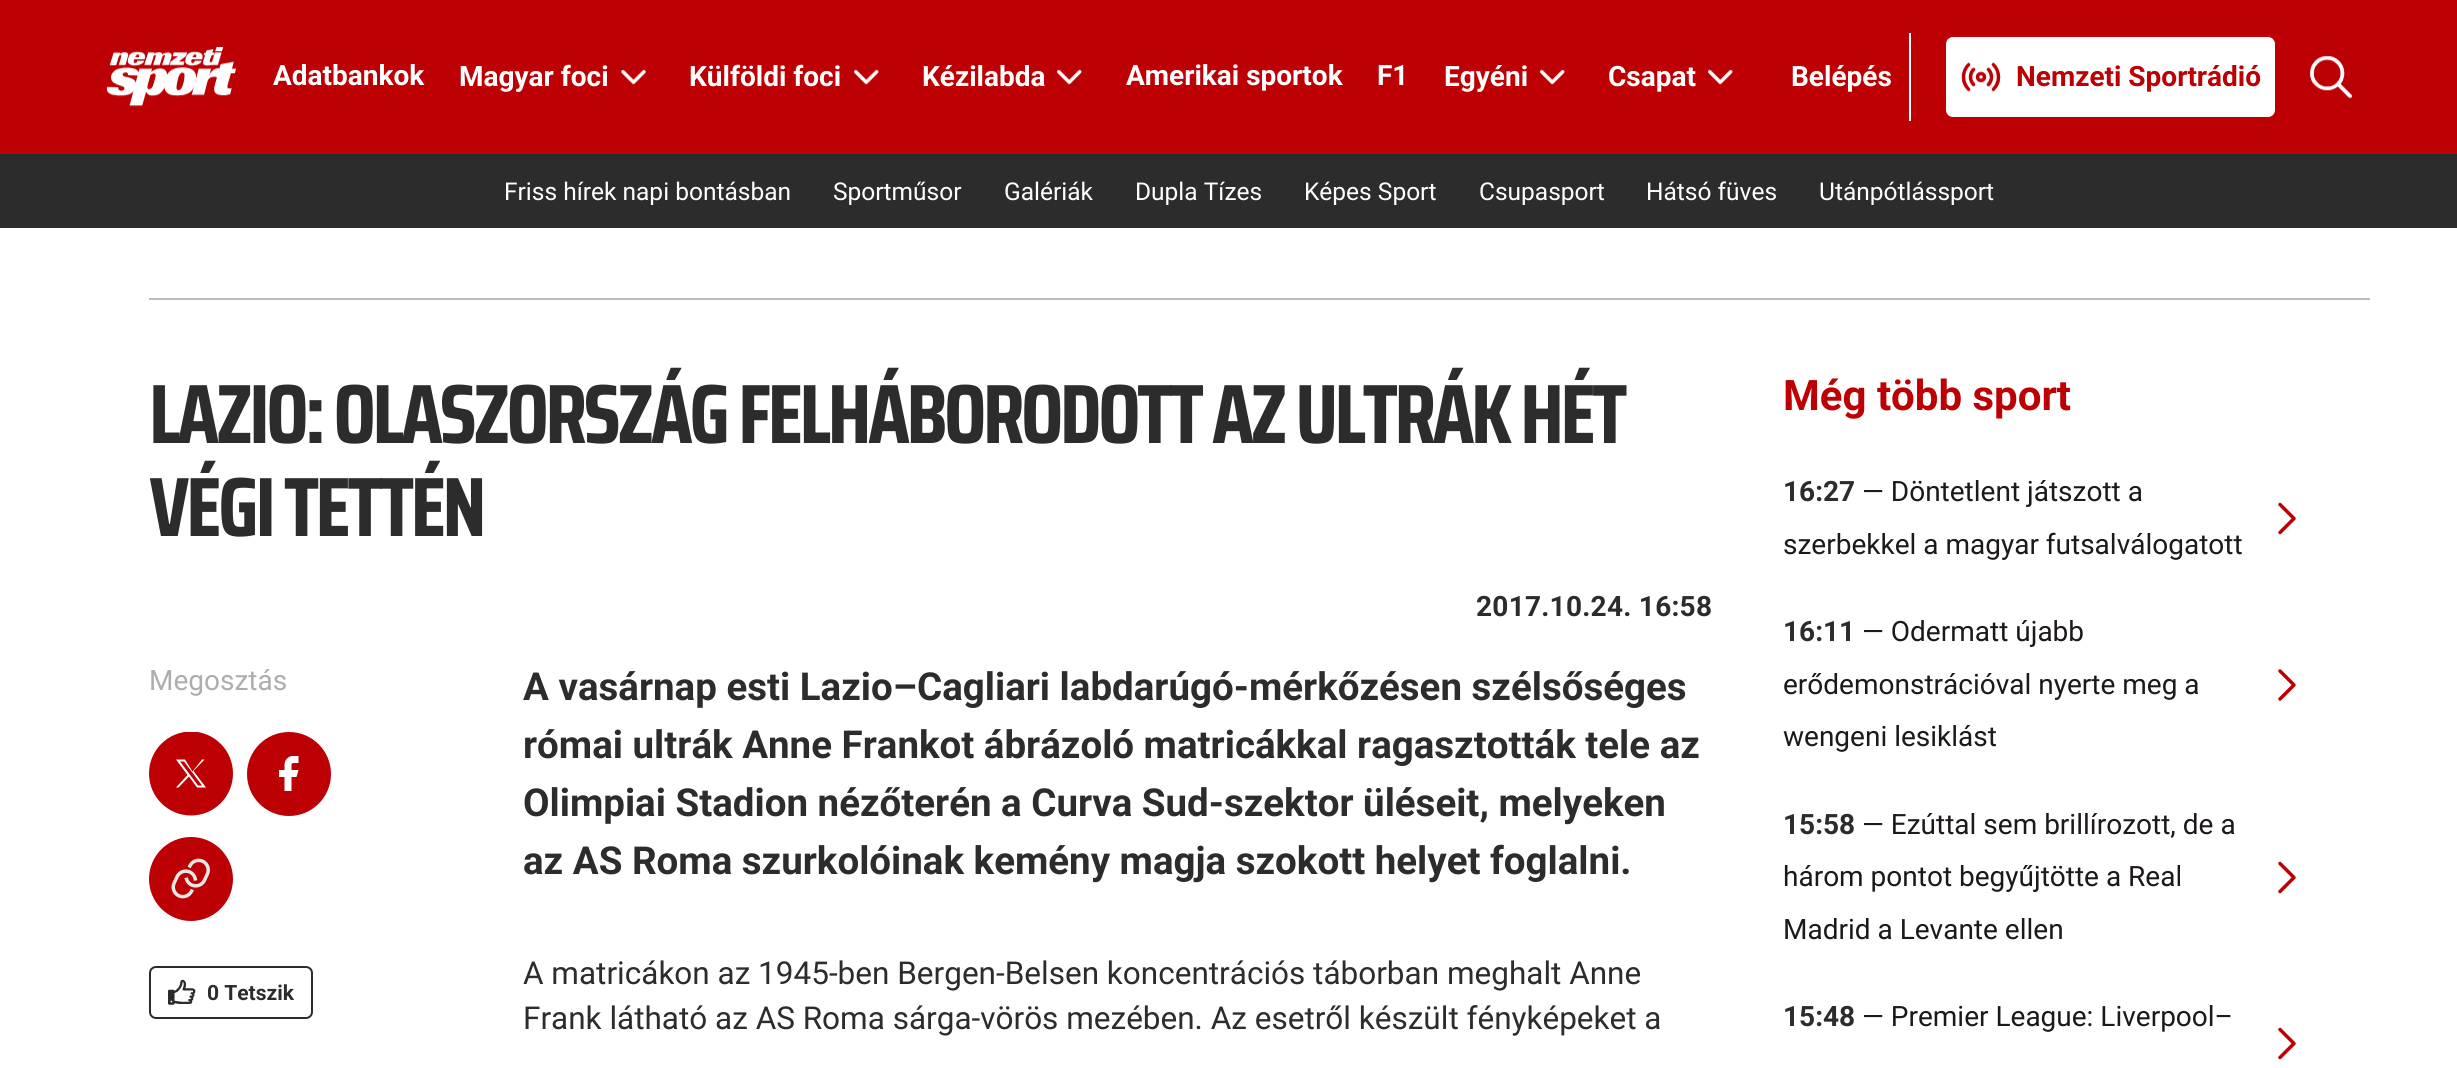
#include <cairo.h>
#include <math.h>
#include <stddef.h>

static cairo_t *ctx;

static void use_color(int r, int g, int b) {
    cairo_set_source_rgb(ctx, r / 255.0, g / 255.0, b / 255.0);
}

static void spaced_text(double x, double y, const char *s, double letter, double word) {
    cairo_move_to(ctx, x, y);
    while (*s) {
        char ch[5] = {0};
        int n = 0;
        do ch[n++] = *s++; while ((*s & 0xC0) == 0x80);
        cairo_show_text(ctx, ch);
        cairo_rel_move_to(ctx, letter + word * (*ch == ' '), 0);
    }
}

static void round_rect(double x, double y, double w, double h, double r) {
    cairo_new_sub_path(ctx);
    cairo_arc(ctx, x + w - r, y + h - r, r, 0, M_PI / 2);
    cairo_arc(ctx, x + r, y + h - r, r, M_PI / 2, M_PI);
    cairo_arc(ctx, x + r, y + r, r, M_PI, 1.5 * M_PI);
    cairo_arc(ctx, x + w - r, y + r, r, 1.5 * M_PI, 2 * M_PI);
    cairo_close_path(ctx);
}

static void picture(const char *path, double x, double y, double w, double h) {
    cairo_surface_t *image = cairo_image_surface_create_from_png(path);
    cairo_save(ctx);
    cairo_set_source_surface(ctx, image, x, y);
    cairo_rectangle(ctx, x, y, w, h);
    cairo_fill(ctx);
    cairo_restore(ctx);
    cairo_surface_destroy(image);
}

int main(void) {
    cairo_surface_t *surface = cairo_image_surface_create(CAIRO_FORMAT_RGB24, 2457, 1068);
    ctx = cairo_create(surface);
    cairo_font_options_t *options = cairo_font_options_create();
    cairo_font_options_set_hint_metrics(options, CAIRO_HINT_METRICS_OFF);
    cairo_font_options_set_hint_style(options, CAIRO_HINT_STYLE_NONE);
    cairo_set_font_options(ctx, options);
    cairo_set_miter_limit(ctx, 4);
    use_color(255, 255, 255);
    cairo_paint(ctx);
    use_color(189, 0, 4);
    cairo_rectangle(ctx, 0, 0, 2457, 154);
    cairo_fill(ctx);
    picture("img1.png", 106, 47, 130, 60);
    cairo_select_font_face(ctx, "Roboto", CAIRO_FONT_SLANT_NORMAL, CAIRO_FONT_WEIGHT_BOLD);
    cairo_set_font_size(ctx, 28);
    use_color(255, 255, 255);
    cairo_move_to(ctx, 273, 85);
    cairo_show_text(ctx, "Adatbankok");
    cairo_move_to(ctx, 459, 86);
    cairo_show_text(ctx, "Magyar foci");
    picture("img2.png", 621, 69, 25, 16);
    cairo_move_to(ctx, 689, 86);
    cairo_show_text(ctx, "Külföldi foci");
    picture("img3.png", 854, 69, 25, 16);
    cairo_move_to(ctx, 922, 86);
    cairo_show_text(ctx, "Kézilabda");
    picture("img3.png", 1057, 69, 25, 16);
    cairo_move_to(ctx, 1126, 85);
    cairo_show_text(ctx, "Amerikai sportok");
    cairo_move_to(ctx, 1377, 85);
    cairo_show_text(ctx, "F1");
    cairo_move_to(ctx, 1444, 86);
    cairo_show_text(ctx, "Egyéni");
    picture("img3.png", 1540, 69, 25, 16);
    cairo_move_to(ctx, 1608, 86);
    cairo_show_text(ctx, "Csapat");
    picture("img3.png", 1708, 69, 25, 16);
    cairo_rectangle(ctx, 1909, 33, 2, 88);
    cairo_fill(ctx);
    cairo_move_to(ctx, 1791, 86);
    cairo_show_text(ctx, "Belépés");
    round_rect(1946, 37, 329, 80, 7);
    cairo_fill(ctx);
    picture("img4.png", 1961, 62, 40, 30);
    use_color(189, 0, 4);
    cairo_move_to(ctx, 2016, 86);
    cairo_show_text(ctx, "Nemzeti Sportrádió");
    picture("img5.png", 2310, 55, 42, 44);
    use_color(44, 44, 44);
    cairo_rectangle(ctx, 0, 154, 2457, 74);
    cairo_fill(ctx);
    cairo_select_font_face(ctx, "Roboto", CAIRO_FONT_SLANT_NORMAL, CAIRO_FONT_WEIGHT_NORMAL);
    cairo_set_font_size(ctx, 24.5);
    use_color(255, 255, 255);
    cairo_move_to(ctx, 504, 200);
    cairo_show_text(ctx, "Friss hírek napi bontásban");
    cairo_move_to(ctx, 833, 200);
    cairo_show_text(ctx, "Sportműsor");
    cairo_move_to(ctx, 1004, 200);
    cairo_show_text(ctx, "Galériák");
    cairo_move_to(ctx, 1135, 200);
    cairo_show_text(ctx, "Dupla Tízes");
    cairo_move_to(ctx, 1304, 200);
    cairo_show_text(ctx, "Képes Sport");
    cairo_move_to(ctx, 1479, 200);
    cairo_show_text(ctx, "Csupasport");
    cairo_move_to(ctx, 1646, 200);
    cairo_show_text(ctx, "Hátsó füves");
    cairo_move_to(ctx, 1819, 200);
    cairo_show_text(ctx, "Utánpótlássport");
    use_color(188, 188, 188);
    cairo_rectangle(ctx, 149, 298, 2221, 2);
    cairo_fill(ctx);
    cairo_select_font_face(ctx, "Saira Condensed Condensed", CAIRO_FONT_SLANT_NORMAL, CAIRO_FONT_WEIGHT_BOLD);
    cairo_set_font_size(ctx, 84);
    use_color(44, 44, 44);
    spaced_text(149, 443, "LAZIO: OLASZORSZÁG FELHÁBORODOTT AZ ULTRÁK HÉT", -3.5, 0);
    spaced_text(149, 536, "VÉGI TETTÉN", -3.5, 0);
    cairo_select_font_face(ctx, "Roboto", CAIRO_FONT_SLANT_NORMAL, CAIRO_FONT_WEIGHT_BOLD);
    cairo_set_font_size(ctx, 28);
    spaced_text(1476, 616, "2017.10.24. 16:58", 0.25, 0);
    cairo_select_font_face(ctx, "Roboto", CAIRO_FONT_SLANT_NORMAL, CAIRO_FONT_WEIGHT_NORMAL);
    use_color(173, 173, 173);
    cairo_move_to(ctx, 149, 690);
    cairo_show_text(ctx, "Megosztás");
    cairo_save(ctx);
    cairo_rectangle(ctx, 149, 732, 84, 84);
    cairo_clip(ctx);
    use_color(189, 0, 4);
    cairo_arc(ctx, 191, 773.5, 42, 0, 2 * M_PI);
    cairo_fill(ctx);
    cairo_restore(ctx);
    use_color(255, 255, 255);
    cairo_new_path(ctx);
    cairo_move_to(ctx, 176, 759.5);
    cairo_line_to(ctx, 187.5, 775);
    cairo_line_to(ctx, 176, 787.5);
    cairo_line_to(ctx, 178.5, 787.5);
    cairo_line_to(ctx, 189, 776.5);
    cairo_line_to(ctx, 197, 787.5);
    cairo_line_to(ctx, 206, 787.5);
    cairo_line_to(ctx, 193.5, 771);
    cairo_line_to(ctx, 204.5, 759.5);
    cairo_line_to(ctx, 202, 759.5);
    cairo_line_to(ctx, 192.5, 771.5);
    cairo_line_to(ctx, 185, 759.5);
    cairo_close_path(ctx);
    cairo_move_to(ctx, 180, 761.5);
    cairo_line_to(ctx, 184, 761.5);
    cairo_line_to(ctx, 202, 785.5);
    cairo_line_to(ctx, 198, 785.5);
    cairo_close_path(ctx);
    cairo_fill(ctx);
    use_color(189, 0, 4);
    cairo_arc(ctx, 289, 774, 42, 0, 2 * M_PI);
    cairo_fill(ctx);
    use_color(255, 255, 255);
    cairo_new_path(ctx);
    cairo_move_to(ctx, 298.5, 756);
    cairo_line_to(ctx, 291.5, 756);
    cairo_curve_to(ctx, 287.5, 757, 285, 760, 284.5, 764);
    cairo_line_to(ctx, 284.5, 770);
    cairo_line_to(ctx, 279, 770);
    cairo_line_to(ctx, 279, 777);
    cairo_line_to(ctx, 284.5, 777);
    cairo_line_to(ctx, 284.5, 791);
    cairo_line_to(ctx, 291.5, 791);
    cairo_line_to(ctx, 291.5, 777);
    cairo_line_to(ctx, 296.5, 777);
    cairo_line_to(ctx, 298.5, 770);
    cairo_line_to(ctx, 291.5, 770);
    cairo_curve_to(ctx, 291.5, 762, 290.5, 763, 298.5, 763);
    cairo_close_path(ctx);
    cairo_fill(ctx);
    picture("img6.png", 149, 837, 84, 84);
    round_rect(150, 967, 162, 51, 6);
    use_color(44, 44, 44);
    cairo_stroke(ctx);
    picture("img7.png", 168, 979, 28, 26);
    cairo_select_font_face(ctx, "Roboto", CAIRO_FONT_SLANT_NORMAL, CAIRO_FONT_WEIGHT_BOLD);
    cairo_set_font_size(ctx, 21);
    cairo_move_to(ctx, 207, 1000);
    cairo_show_text(ctx, "0 Tetszik");
    cairo_set_font_size(ctx, 38.5);
    cairo_move_to(ctx, 523, 700);
    cairo_show_text(ctx, "A vasárnap esti Lazio–Cagliari labdarúgó-mérkőzésen szélsőséges");
    cairo_move_to(ctx, 523, 758);
    cairo_show_text(ctx, "római ultrák Anne Frankot ábrázoló matricákkal ragasztották tele az");
    cairo_move_to(ctx, 523, 816);
    cairo_show_text(ctx, "Olimpiai Stadion nézőterén a Curva Sud-szektor üléseit, melyeken");
    cairo_move_to(ctx, 523, 874);
    cairo_show_text(ctx, "az AS Roma szurkolóinak kemény magja szokott helyet foglalni.");
    cairo_select_font_face(ctx, "Roboto", CAIRO_FONT_SLANT_NORMAL, CAIRO_FONT_WEIGHT_NORMAL);
    cairo_set_font_size(ctx, 31.5);
    cairo_move_to(ctx, 523, 984);
    cairo_show_text(ctx, "A matricákon az 1945-ben Bergen-Belsen koncentrációs táborban meghalt Anne");
    cairo_move_to(ctx, 523, 1029);
    cairo_show_text(ctx, "Frank látható az AS Roma sárga-vörös mezében. Az esetről készült fényképeket a");
    cairo_select_font_face(ctx, "Roboto", CAIRO_FONT_SLANT_NORMAL, CAIRO_FONT_WEIGHT_BOLD);
    cairo_set_font_size(ctx, 42);
    use_color(189, 0, 4);
    cairo_move_to(ctx, 1783, 410);
    cairo_show_text(ctx, "Még több sport");
    cairo_set_font_size(ctx, 28);
    use_color(44, 44, 44);
    cairo_move_to(ctx, 1783, 501);
    cairo_show_text(ctx, "16:27");
    cairo_select_font_face(ctx, "Roboto", CAIRO_FONT_SLANT_NORMAL, CAIRO_FONT_WEIGHT_NORMAL);
    use_color(29, 25, 25);
    cairo_move_to(ctx, 1862, 501);
    cairo_show_text(ctx, "— Döntetlent játszott a");
    cairo_move_to(ctx, 1783, 554);
    cairo_show_text(ctx, "szerbekkel a magyar futsalválogatott");
    cairo_new_path(ctx);
    cairo_move_to(ctx, 2280, 532.5);
    cairo_line_to(ctx, 2294, 518.5);
    cairo_line_to(ctx, 2280, 504.5);
    use_color(189, 0, 4);
    cairo_set_line_width(ctx, 3.5);
    cairo_set_line_cap(ctx, CAIRO_LINE_CAP_ROUND);
    cairo_set_line_join(ctx, CAIRO_LINE_JOIN_ROUND);
    cairo_stroke(ctx);
    cairo_select_font_face(ctx, "Roboto", CAIRO_FONT_SLANT_NORMAL, CAIRO_FONT_WEIGHT_BOLD);
    use_color(44, 44, 44);
    cairo_move_to(ctx, 1783, 641);
    cairo_show_text(ctx, "16:11");
    cairo_select_font_face(ctx, "Roboto", CAIRO_FONT_SLANT_NORMAL, CAIRO_FONT_WEIGHT_NORMAL);
    use_color(29, 25, 25);
    cairo_move_to(ctx, 1862, 641);
    cairo_show_text(ctx, "— Odermatt újabb");
    cairo_move_to(ctx, 1783, 694);
    cairo_show_text(ctx, "erődemonstrációval nyerte meg a");
    cairo_move_to(ctx, 1783, 746);
    cairo_show_text(ctx, "wengeni lesiklást");
    cairo_new_path(ctx);
    cairo_move_to(ctx, 2280, 699);
    cairo_line_to(ctx, 2294, 685);
    cairo_line_to(ctx, 2280, 671);
    use_color(189, 0, 4);
    cairo_stroke(ctx);
    cairo_select_font_face(ctx, "Roboto", CAIRO_FONT_SLANT_NORMAL, CAIRO_FONT_WEIGHT_BOLD);
    use_color(44, 44, 44);
    cairo_move_to(ctx, 1783, 834);
    cairo_show_text(ctx, "15:58");
    cairo_select_font_face(ctx, "Roboto", CAIRO_FONT_SLANT_NORMAL, CAIRO_FONT_WEIGHT_NORMAL);
    use_color(29, 25, 25);
    cairo_move_to(ctx, 1862, 834);
    cairo_show_text(ctx, "— Ezúttal sem brillírozott, de a");
    cairo_move_to(ctx, 1783, 886);
    cairo_show_text(ctx, "három pontot begyűjtötte a Real");
    cairo_move_to(ctx, 1783, 939);
    cairo_show_text(ctx, "Madrid a Levante ellen");
    cairo_new_path(ctx);
    cairo_move_to(ctx, 2280, 891.5);
    cairo_line_to(ctx, 2294, 877.5);
    cairo_line_to(ctx, 2280, 863.5);
    use_color(189, 0, 4);
    cairo_stroke(ctx);
    cairo_select_font_face(ctx, "Roboto", CAIRO_FONT_SLANT_NORMAL, CAIRO_FONT_WEIGHT_BOLD);
    use_color(44, 44, 44);
    cairo_move_to(ctx, 1783, 1026);
    cairo_show_text(ctx, "15:48");
    cairo_select_font_face(ctx, "Roboto", CAIRO_FONT_SLANT_NORMAL, CAIRO_FONT_WEIGHT_NORMAL);
    use_color(29, 25, 25);
    cairo_move_to(ctx, 1862, 1026);
    cairo_show_text(ctx, "— Premier League: Liverpool–");
    cairo_new_path(ctx);
    cairo_move_to(ctx, 2280, 1057.5);
    cairo_line_to(ctx, 2294, 1043.5);
    cairo_line_to(ctx, 2280, 1029.5);
    use_color(189, 0, 4);
    cairo_stroke(ctx);
    cairo_surface_write_to_png(surface, "result.png");
    cairo_font_options_destroy(options);
    cairo_destroy(ctx);
    cairo_surface_destroy(surface);
    return 0;
}
